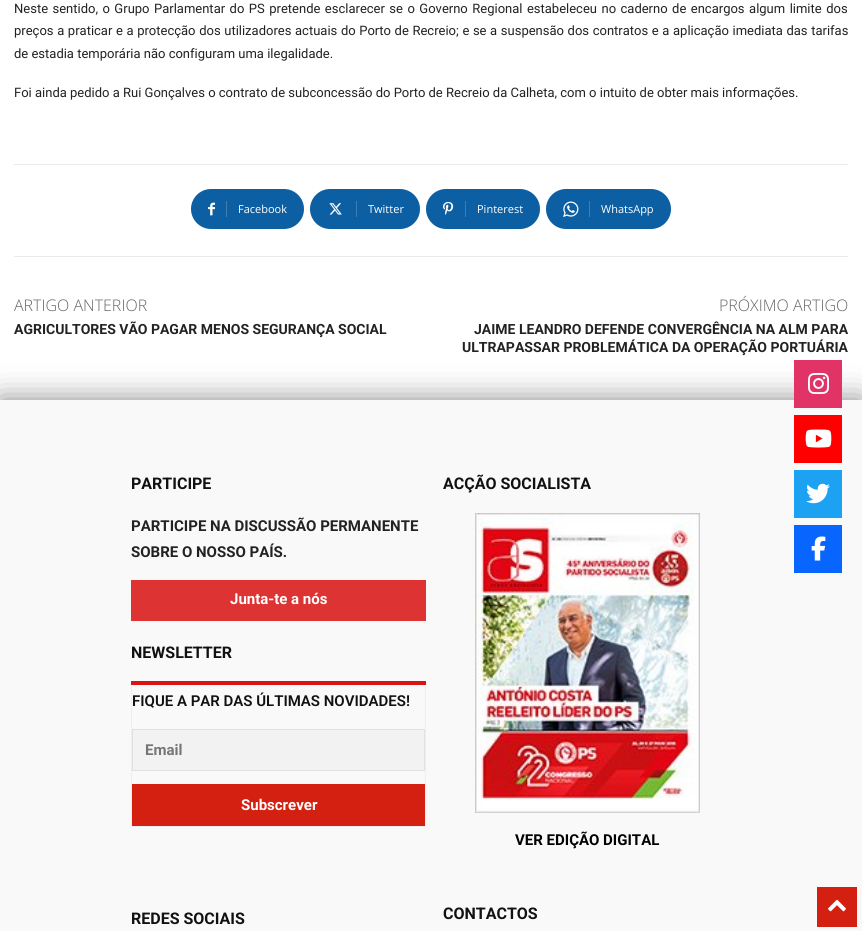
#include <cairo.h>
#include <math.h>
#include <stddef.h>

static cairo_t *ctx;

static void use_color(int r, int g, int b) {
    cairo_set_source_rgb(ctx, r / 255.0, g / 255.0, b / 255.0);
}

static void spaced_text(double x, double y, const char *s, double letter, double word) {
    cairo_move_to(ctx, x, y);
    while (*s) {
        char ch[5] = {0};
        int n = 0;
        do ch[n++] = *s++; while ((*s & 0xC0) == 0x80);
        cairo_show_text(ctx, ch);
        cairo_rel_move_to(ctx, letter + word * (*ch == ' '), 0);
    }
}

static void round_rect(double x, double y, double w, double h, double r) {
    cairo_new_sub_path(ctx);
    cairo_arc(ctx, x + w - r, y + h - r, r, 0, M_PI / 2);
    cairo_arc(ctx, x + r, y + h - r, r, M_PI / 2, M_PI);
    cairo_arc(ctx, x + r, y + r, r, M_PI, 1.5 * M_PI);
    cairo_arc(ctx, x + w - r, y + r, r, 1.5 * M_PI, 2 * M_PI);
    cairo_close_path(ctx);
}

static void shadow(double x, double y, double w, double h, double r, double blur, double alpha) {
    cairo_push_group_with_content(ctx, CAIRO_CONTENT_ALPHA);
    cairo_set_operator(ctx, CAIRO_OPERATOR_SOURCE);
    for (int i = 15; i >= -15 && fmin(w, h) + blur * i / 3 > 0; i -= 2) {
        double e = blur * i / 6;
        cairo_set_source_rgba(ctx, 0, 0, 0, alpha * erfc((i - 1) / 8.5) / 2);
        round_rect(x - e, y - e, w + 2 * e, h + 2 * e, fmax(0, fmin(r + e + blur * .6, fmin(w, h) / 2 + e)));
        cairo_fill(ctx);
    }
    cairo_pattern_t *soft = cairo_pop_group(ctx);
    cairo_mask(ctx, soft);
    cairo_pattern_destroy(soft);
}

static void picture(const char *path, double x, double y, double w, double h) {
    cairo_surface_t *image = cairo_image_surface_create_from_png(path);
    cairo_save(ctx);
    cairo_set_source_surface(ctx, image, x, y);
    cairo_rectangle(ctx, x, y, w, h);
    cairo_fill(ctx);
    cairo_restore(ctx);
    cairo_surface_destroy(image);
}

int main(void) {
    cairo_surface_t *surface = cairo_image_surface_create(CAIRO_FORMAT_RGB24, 862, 931);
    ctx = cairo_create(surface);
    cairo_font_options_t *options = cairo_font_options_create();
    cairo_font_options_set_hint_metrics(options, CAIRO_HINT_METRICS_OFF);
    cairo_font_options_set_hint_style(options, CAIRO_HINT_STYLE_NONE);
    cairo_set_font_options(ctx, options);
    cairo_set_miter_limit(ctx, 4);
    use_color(255, 255, 255);
    cairo_paint(ctx);
    cairo_select_font_face(ctx, "Roboto", CAIRO_FONT_SLANT_NORMAL, CAIRO_FONT_WEIGHT_NORMAL);
    cairo_set_font_size(ctx, 13);
    use_color(34, 34, 34);
    spaced_text(14, 13, "Neste sentido, o Grupo Parlamentar do PS pretende esclarecer se o Governo Regional estabeleceu no caderno de encargos algum limite dos", 0, 1.25);
    spaced_text(14, 35, "preços a praticar e a protecção dos utilizadores actuais do Porto de Recreio; e se a suspensão dos contratos e a aplicação imediata das tarifas", 0, 0.4);
    cairo_move_to(ctx, 14, 58);
    cairo_show_text(ctx, "de estadia temporária não configuram uma ilegalidade.");
    cairo_move_to(ctx, 14, 97);
    cairo_show_text(ctx, "Foi ainda pedido a Rui Gonçalves o contrato de subconcessão do Porto de Recreio da Calheta, com o intuito de obter mais informações.");
    use_color(235, 235, 235);
    cairo_rectangle(ctx, 14, 164, 834, 1);
    cairo_fill(ctx);
    use_color(12, 95, 163);
    cairo_new_path(ctx);
    cairo_move_to(ctx, 226, 189);
    cairo_line_to(ctx, 284, 189);
    cairo_curve_to(ctx, 295, 189, 304, 198, 304, 209);
    cairo_curve_to(ctx, 304, 220, 295, 229, 284, 229);
    cairo_line_to(ctx, 226, 229);
    cairo_close_path(ctx);
    cairo_fill(ctx);
    cairo_new_path(ctx);
    cairo_move_to(ctx, 211, 189);
    cairo_line_to(ctx, 232, 189);
    cairo_line_to(ctx, 232, 229);
    cairo_line_to(ctx, 211, 229);
    cairo_curve_to(ctx, 200, 229, 191, 220, 191, 209);
    cairo_curve_to(ctx, 191, 198, 200, 189, 211, 189);
    cairo_close_path(ctx);
    cairo_fill(ctx);
    picture("img1.png", 208, 202, 7, 14);
    use_color(61, 127, 181);
    cairo_rectangle(ctx, 226, 201, 1, 16);
    cairo_fill(ctx);
    cairo_select_font_face(ctx, "Open Sans", CAIRO_FONT_SLANT_NORMAL, CAIRO_FONT_WEIGHT_NORMAL);
    cairo_set_font_size(ctx, 11);
    use_color(255, 255, 255);
    cairo_move_to(ctx, 238, 213);
    cairo_show_text(ctx, "Facebook");
    use_color(12, 95, 163);
    cairo_new_path(ctx);
    cairo_move_to(ctx, 356, 189);
    cairo_line_to(ctx, 400, 189);
    cairo_curve_to(ctx, 411, 189, 420, 198, 420, 209);
    cairo_curve_to(ctx, 420, 220, 411, 229, 400, 229);
    cairo_line_to(ctx, 356, 229);
    cairo_close_path(ctx);
    cairo_fill(ctx);
    cairo_new_path(ctx);
    cairo_move_to(ctx, 330, 189);
    cairo_line_to(ctx, 362, 189);
    cairo_line_to(ctx, 362, 229);
    cairo_line_to(ctx, 330, 229);
    cairo_curve_to(ctx, 319, 229, 310, 220, 310, 209);
    cairo_curve_to(ctx, 310, 198, 319, 189, 330, 189);
    cairo_close_path(ctx);
    cairo_fill(ctx);
    picture("img2.png", 329, 203, 13, 12);
    use_color(61, 127, 181);
    cairo_rectangle(ctx, 356, 201, 1, 16);
    cairo_fill(ctx);
    use_color(255, 255, 255);
    cairo_move_to(ctx, 368, 213);
    cairo_show_text(ctx, "Twitter");
    use_color(12, 95, 163);
    cairo_new_path(ctx);
    cairo_move_to(ctx, 465, 189);
    cairo_line_to(ctx, 520, 189);
    cairo_curve_to(ctx, 531, 189, 540, 198, 540, 209);
    cairo_curve_to(ctx, 540, 220, 531, 229, 520, 229);
    cairo_line_to(ctx, 465, 229);
    cairo_close_path(ctx);
    cairo_fill(ctx);
    cairo_new_path(ctx);
    cairo_move_to(ctx, 446, 189);
    cairo_line_to(ctx, 471, 189);
    cairo_line_to(ctx, 471, 229);
    cairo_line_to(ctx, 446, 229);
    cairo_curve_to(ctx, 435, 229, 426, 220, 426, 209);
    cairo_curve_to(ctx, 426, 198, 435, 189, 446, 189);
    cairo_close_path(ctx);
    cairo_fill(ctx);
    picture("img3.png", 443, 201, 11, 14);
    use_color(61, 127, 181);
    cairo_rectangle(ctx, 465, 201, 1, 16);
    cairo_fill(ctx);
    use_color(255, 255, 255);
    cairo_move_to(ctx, 477, 213);
    cairo_show_text(ctx, "Pinterest");
    use_color(12, 95, 163);
    cairo_new_path(ctx);
    cairo_move_to(ctx, 589, 189);
    cairo_line_to(ctx, 651, 189);
    cairo_curve_to(ctx, 662, 189, 671, 198, 671, 209);
    cairo_curve_to(ctx, 671, 220, 662, 229, 651, 229);
    cairo_line_to(ctx, 589, 229);
    cairo_close_path(ctx);
    cairo_fill(ctx);
    cairo_new_path(ctx);
    cairo_move_to(ctx, 566, 189);
    cairo_line_to(ctx, 595, 189);
    cairo_line_to(ctx, 595, 229);
    cairo_line_to(ctx, 566, 229);
    cairo_curve_to(ctx, 555, 229, 546, 220, 546, 209);
    cairo_curve_to(ctx, 546, 198, 555, 189, 566, 189);
    cairo_close_path(ctx);
    cairo_fill(ctx);
    picture("img4.png", 563, 201, 16, 16);
    use_color(61, 127, 181);
    cairo_rectangle(ctx, 589, 201, 1, 16);
    cairo_fill(ctx);
    use_color(255, 255, 255);
    cairo_move_to(ctx, 601, 213);
    cairo_show_text(ctx, "WhatsApp");
    use_color(235, 235, 235);
    cairo_rectangle(ctx, 14, 256, 834, 1);
    cairo_fill(ctx);
    cairo_select_font_face(ctx, "Open Sans Light", CAIRO_FONT_SLANT_NORMAL, CAIRO_FONT_WEIGHT_NORMAL);
    cairo_set_font_size(ctx, 16);
    use_color(102, 102, 102);
    cairo_move_to(ctx, 14, 311);
    cairo_show_text(ctx, "ARTIGO ANTERIOR");
    cairo_select_font_face(ctx, "Roboto", CAIRO_FONT_SLANT_NORMAL, CAIRO_FONT_WEIGHT_BOLD);
    cairo_set_font_size(ctx, 14);
    use_color(34, 34, 34);
    cairo_move_to(ctx, 14, 334);
    cairo_show_text(ctx, "AGRICULTORES VÃO PAGAR MENOS SEGURANÇA SOCIAL");
    cairo_select_font_face(ctx, "Open Sans Light", CAIRO_FONT_SLANT_NORMAL, CAIRO_FONT_WEIGHT_NORMAL);
    cairo_set_font_size(ctx, 16);
    use_color(102, 102, 102);
    cairo_move_to(ctx, 719, 311);
    cairo_show_text(ctx, "PRÓXIMO ARTIGO");
    cairo_select_font_face(ctx, "Roboto", CAIRO_FONT_SLANT_NORMAL, CAIRO_FONT_WEIGHT_BOLD);
    cairo_set_font_size(ctx, 14);
    use_color(34, 34, 34);
    cairo_move_to(ctx, 474, 334);
    cairo_show_text(ctx, "JAIME LEANDRO DEFENDE CONVERGÊNCIA NA ALM PARA");
    cairo_move_to(ctx, 462, 352);
    cairo_show_text(ctx, "ULTRAPASSAR PROBLEMÁTICA DA OPERAÇÃO PORTUÁRIA");
    use_color(136, 136, 136);
    shadow(0, 400, 862, 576, 0, 15, 1);
    use_color(249, 249, 249);
    cairo_rectangle(ctx, 0, 400, 862, 531);
    cairo_fill(ctx);
    cairo_set_font_size(ctx, 16);
    use_color(17, 17, 17);
    cairo_move_to(ctx, 131, 489);
    cairo_show_text(ctx, "PARTICIPE");
    cairo_set_font_size(ctx, 15);
    use_color(34, 34, 34);
    cairo_move_to(ctx, 131, 531);
    cairo_show_text(ctx, "PARTICIPE NA DISCUSSÃO PERMANENTE");
    cairo_move_to(ctx, 131, 557);
    cairo_show_text(ctx, "SOBRE O NOSSO PAÍS.");
    use_color(221, 51, 51);
    cairo_rectangle(ctx, 131, 580, 295, 41);
    cairo_fill(ctx);
    use_color(255, 255, 255);
    cairo_move_to(ctx, 230, 604);
    cairo_show_text(ctx, "Junta-te a nós");
    cairo_set_font_size(ctx, 16);
    use_color(17, 17, 17);
    cairo_move_to(ctx, 131, 658);
    cairo_show_text(ctx, "NEWSLETTER");
    cairo_rectangle(ctx, 131.5, 681.5, 294, 145);
    use_color(238, 238, 238);
    cairo_set_line_width(ctx, 1);
    cairo_stroke(ctx);
    use_color(218, 20, 20);
    cairo_rectangle(ctx, 131, 681, 295, 4);
    cairo_fill(ctx);
    cairo_select_font_face(ctx, "Roboto SemiBold", CAIRO_FONT_SLANT_NORMAL, CAIRO_FONT_WEIGHT_NORMAL);
    cairo_set_font_size(ctx, 15);
    use_color(17, 17, 17);
    cairo_move_to(ctx, 132, 706);
    cairo_show_text(ctx, "FIQUE A PAR DAS ÚLTIMAS NOVIDADES!");
    use_color(242, 242, 242);
    cairo_rectangle(ctx, 132.5, 729.5, 292, 41);
    cairo_fill_preserve(ctx);
    use_color(225, 225, 225);
    cairo_stroke(ctx);
    cairo_select_font_face(ctx, "Roboto", CAIRO_FONT_SLANT_NORMAL, CAIRO_FONT_WEIGHT_BOLD);
    use_color(117, 117, 117);
    cairo_move_to(ctx, 145, 755);
    cairo_show_text(ctx, "Email");
    use_color(211, 32, 16);
    cairo_rectangle(ctx, 132, 784, 293, 42);
    cairo_fill(ctx);
    use_color(255, 255, 255);
    cairo_move_to(ctx, 241, 810);
    cairo_show_text(ctx, "Subscrever");
    cairo_set_font_size(ctx, 16);
    use_color(17, 17, 17);
    cairo_move_to(ctx, 131, 924);
    cairo_show_text(ctx, "REDES SOCIAIS");
    cairo_move_to(ctx, 443, 489);
    cairo_show_text(ctx, "ACÇÃO SOCIALISTA");
    picture("img5.png", 475, 513, 225, 300);
    cairo_set_font_size(ctx, 15);
    use_color(0, 0, 0);
    cairo_move_to(ctx, 515, 845);
    cairo_show_text(ctx, "VER EDIÇÃO DIGITAL");
    cairo_set_font_size(ctx, 16);
    use_color(17, 17, 17);
    cairo_move_to(ctx, 443, 919);
    cairo_show_text(ctx, "CONTACTOS");
    use_color(226, 51, 103);
    cairo_rectangle(ctx, 794, 360, 48, 48);
    cairo_fill(ctx);
    picture("img6.png", 808, 373, 21, 21);
    use_color(255, 0, 0);
    cairo_rectangle(ctx, 794, 415, 48, 48);
    cairo_fill(ctx);
    picture("img7.png", 805, 429, 27, 19);
    use_color(29, 161, 242);
    cairo_rectangle(ctx, 794, 470, 48, 48);
    cairo_fill(ctx);
    picture("img8.png", 806, 483, 24, 21);
    use_color(8, 102, 255);
    cairo_rectangle(ctx, 794, 525, 48, 48);
    cairo_fill(ctx);
    picture("img9.png", 811, 536, 15, 25);
    use_color(211, 32, 16);
    cairo_rectangle(ctx, 817, 887, 40, 40);
    cairo_fill(ctx);
    picture("img10.png", 828, 899, 18, 13);
    cairo_surface_write_to_png(surface, "result.png");
    cairo_font_options_destroy(options);
    cairo_destroy(ctx);
    cairo_surface_destroy(surface);
    return 0;
}
